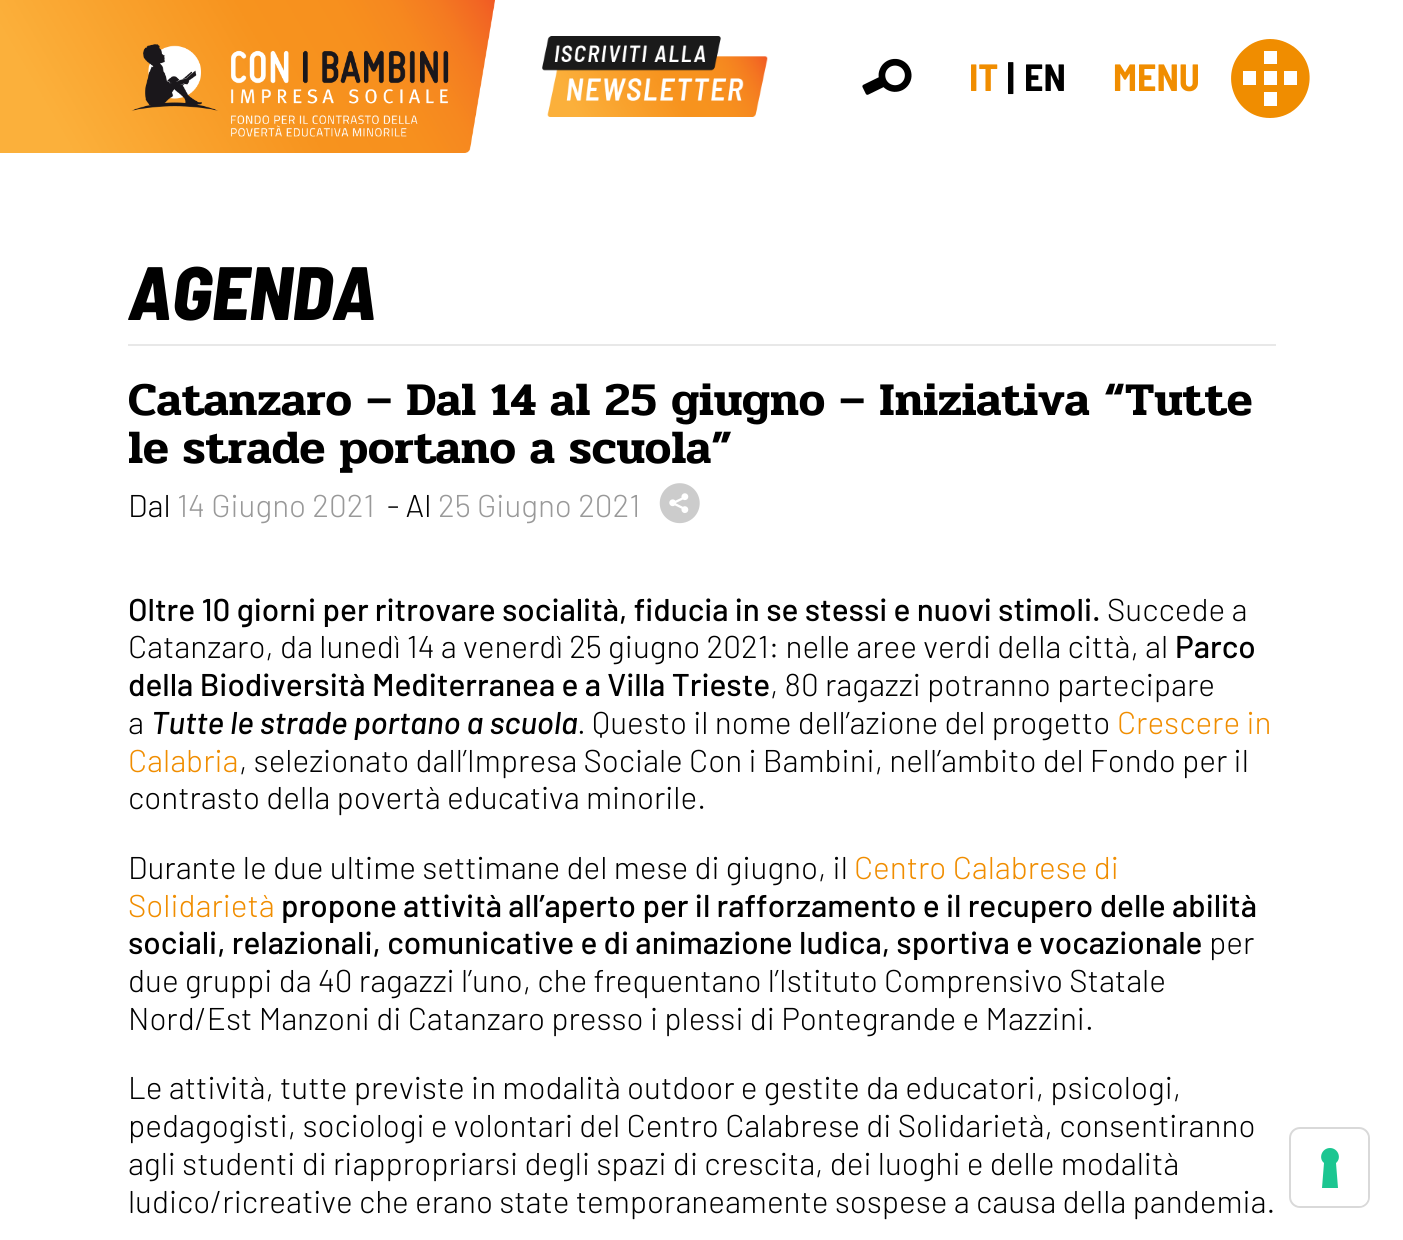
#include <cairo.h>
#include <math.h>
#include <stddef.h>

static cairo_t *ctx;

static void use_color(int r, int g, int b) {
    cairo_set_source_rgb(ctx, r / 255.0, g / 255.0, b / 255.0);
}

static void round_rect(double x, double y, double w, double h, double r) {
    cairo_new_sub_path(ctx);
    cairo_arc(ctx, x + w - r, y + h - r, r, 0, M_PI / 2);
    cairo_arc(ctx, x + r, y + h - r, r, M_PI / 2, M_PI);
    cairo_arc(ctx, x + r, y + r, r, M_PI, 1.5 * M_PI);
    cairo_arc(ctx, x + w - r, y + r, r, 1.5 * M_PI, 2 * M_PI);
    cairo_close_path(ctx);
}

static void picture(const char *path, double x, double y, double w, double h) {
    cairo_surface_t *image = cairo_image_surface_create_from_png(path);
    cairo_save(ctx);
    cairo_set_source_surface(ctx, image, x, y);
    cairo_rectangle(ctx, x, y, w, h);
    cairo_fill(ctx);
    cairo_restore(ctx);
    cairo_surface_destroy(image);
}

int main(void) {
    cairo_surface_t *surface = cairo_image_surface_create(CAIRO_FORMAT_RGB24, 1403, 1240);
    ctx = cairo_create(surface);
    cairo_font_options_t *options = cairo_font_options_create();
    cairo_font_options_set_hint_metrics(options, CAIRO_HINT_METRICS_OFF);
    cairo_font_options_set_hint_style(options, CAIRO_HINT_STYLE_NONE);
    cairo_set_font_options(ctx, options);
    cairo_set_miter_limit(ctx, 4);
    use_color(255, 255, 255);
    cairo_paint(ctx);
    picture("img1.png", 0, 0, 495, 153);
    picture("img2.png", 542, 36, 226, 81);
    picture("img3.png", 862, 58, 50, 37);
    cairo_select_font_face(ctx, "Barlow Semi Condensed", CAIRO_FONT_SLANT_NORMAL, CAIRO_FONT_WEIGHT_BOLD);
    cairo_set_font_size(ctx, 38);
    use_color(240, 141, 0);
    cairo_move_to(ctx, 969, 91);
    cairo_show_text(ctx, "IT");
    use_color(0, 0, 0);
    cairo_move_to(ctx, 1007, 91);
    cairo_show_text(ctx, "|");
    cairo_move_to(ctx, 1024, 91);
    cairo_show_text(ctx, "EN");
    use_color(240, 141, 0);
    cairo_move_to(ctx, 1113, 91);
    cairo_show_text(ctx, "MENU");
    cairo_new_path(ctx);
    cairo_move_to(ctx, 1270, 39);
    cairo_curve_to(ctx, 1262, 39, 1253, 42, 1247, 47);
    cairo_curve_to(ctx, 1217, 69, 1232, 118, 1270, 118);
    cairo_curve_to(ctx, 1308, 118, 1324, 69, 1294, 47);
    cairo_curve_to(ctx, 1287, 42, 1279, 39, 1270, 39);
    cairo_close_path(ctx);
    cairo_move_to(ctx, 1256, 85);
    cairo_line_to(ctx, 1243, 85);
    cairo_line_to(ctx, 1243, 71);
    cairo_line_to(ctx, 1256, 71);
    cairo_close_path(ctx);
    cairo_move_to(ctx, 1277, 106);
    cairo_line_to(ctx, 1264, 106);
    cairo_line_to(ctx, 1264, 92);
    cairo_line_to(ctx, 1277, 92);
    cairo_close_path(ctx);
    cairo_move_to(ctx, 1277, 85);
    cairo_line_to(ctx, 1264, 85);
    cairo_line_to(ctx, 1264, 71);
    cairo_line_to(ctx, 1277, 71);
    cairo_close_path(ctx);
    cairo_move_to(ctx, 1277, 64);
    cairo_line_to(ctx, 1264, 64);
    cairo_line_to(ctx, 1264, 51);
    cairo_line_to(ctx, 1277, 51);
    cairo_close_path(ctx);
    cairo_move_to(ctx, 1297, 85);
    cairo_line_to(ctx, 1284, 85);
    cairo_line_to(ctx, 1284, 71);
    cairo_line_to(ctx, 1297, 71);
    cairo_close_path(ctx);
    cairo_fill(ctx);
    use_color(232, 232, 232);
    cairo_rectangle(ctx, 128, 344, 1148, 2);
    cairo_fill(ctx);
    cairo_select_font_face(ctx, "Barlow Semi Condensed ExtraBold", CAIRO_FONT_SLANT_ITALIC, CAIRO_FONT_WEIGHT_NORMAL);
    cairo_set_font_size(ctx, 75.5);
    use_color(0, 0, 0);
    cairo_move_to(ctx, 128, 320);
    cairo_show_text(ctx, "AGENDA");
    cairo_select_font_face(ctx, "Pridi SemiBold", CAIRO_FONT_SLANT_NORMAL, CAIRO_FONT_WEIGHT_NORMAL);
    cairo_set_font_size(ctx, 47.25);
    cairo_move_to(ctx, 128, 415);
    cairo_show_text(ctx, "Catanzaro – Dal 14 al 25 giugno – Iniziativa “Tutte");
    cairo_move_to(ctx, 128, 463);
    cairo_show_text(ctx, "le strade portano a scuola”");
    cairo_select_font_face(ctx, "Barlow Light", CAIRO_FONT_SLANT_NORMAL, CAIRO_FONT_WEIGHT_NORMAL);
    cairo_set_font_size(ctx, 31.5);
    cairo_move_to(ctx, 128, 517);
    cairo_show_text(ctx, "Dal");
    use_color(153, 153, 153);
    cairo_move_to(ctx, 177, 517);
    cairo_show_text(ctx, "14 Giugno 2021");
    use_color(0, 0, 0);
    cairo_move_to(ctx, 387, 517);
    cairo_show_text(ctx, "- Al");
    use_color(153, 153, 153);
    cairo_move_to(ctx, 438, 517);
    cairo_show_text(ctx, "25 Giugno 2021");
    picture("img4.png", 659, 483, 41, 41);
    cairo_select_font_face(ctx, "Barlow Medium", CAIRO_FONT_SLANT_NORMAL, CAIRO_FONT_WEIGHT_NORMAL);
    use_color(0, 0, 0);
    cairo_move_to(ctx, 128, 621);
    cairo_show_text(ctx, "Oltre 10 giorni per ritrovare socialità, fiducia in se stessi e nuovi stimoli.");
    cairo_select_font_face(ctx, "Barlow Light", CAIRO_FONT_SLANT_NORMAL, CAIRO_FONT_WEIGHT_NORMAL);
    cairo_move_to(ctx, 1107, 621);
    cairo_show_text(ctx, "Succede a");
    cairo_move_to(ctx, 128, 658);
    cairo_show_text(ctx, "Catanzaro, da lunedì 14 a venerdì 25 giugno 2021: nelle aree verdi della città, al");
    cairo_select_font_face(ctx, "Barlow Medium", CAIRO_FONT_SLANT_NORMAL, CAIRO_FONT_WEIGHT_NORMAL);
    cairo_move_to(ctx, 1175, 658);
    cairo_show_text(ctx, "Parco");
    cairo_move_to(ctx, 128, 696);
    cairo_show_text(ctx, "della Biodiversità Mediterranea e a Villa Trieste");
    cairo_select_font_face(ctx, "Barlow Light", CAIRO_FONT_SLANT_NORMAL, CAIRO_FONT_WEIGHT_NORMAL);
    cairo_move_to(ctx, 770, 696);
    cairo_show_text(ctx, ", 80 ragazzi potranno partecipare");
    cairo_move_to(ctx, 128, 734);
    cairo_show_text(ctx, "a");
    cairo_select_font_face(ctx, "Barlow Medium", CAIRO_FONT_SLANT_ITALIC, CAIRO_FONT_WEIGHT_NORMAL);
    cairo_move_to(ctx, 151, 734);
    cairo_show_text(ctx, "Tutte le strade portano a scuola");
    cairo_select_font_face(ctx, "Barlow Light", CAIRO_FONT_SLANT_NORMAL, CAIRO_FONT_WEIGHT_NORMAL);
    cairo_move_to(ctx, 577, 734);
    cairo_show_text(ctx, ". Questo il nome dell’azione del progetto");
    use_color(240, 141, 0);
    cairo_move_to(ctx, 1117, 734);
    cairo_show_text(ctx, "Crescere in");
    cairo_move_to(ctx, 128, 772);
    cairo_show_text(ctx, "Calabria");
    use_color(0, 0, 0);
    cairo_move_to(ctx, 239, 772);
    cairo_show_text(ctx, ", selezionato dall’Impresa Sociale Con i Bambini, nell’ambito del Fondo per il");
    cairo_move_to(ctx, 128, 809);
    cairo_show_text(ctx, "contrasto della povertà educativa minorile.");
    cairo_move_to(ctx, 128, 879);
    cairo_show_text(ctx, "Durante le due ultime settimane del mese di giugno, il");
    use_color(240, 141, 0);
    cairo_move_to(ctx, 854, 879);
    cairo_show_text(ctx, "Centro Calabrese di");
    cairo_move_to(ctx, 128, 917);
    cairo_show_text(ctx, "Solidarietà");
    cairo_select_font_face(ctx, "Barlow Medium", CAIRO_FONT_SLANT_NORMAL, CAIRO_FONT_WEIGHT_NORMAL);
    use_color(0, 0, 0);
    cairo_move_to(ctx, 281, 917);
    cairo_show_text(ctx, "propone attività all’aperto per il rafforzamento e il recupero delle abilità");
    cairo_move_to(ctx, 128, 954);
    cairo_show_text(ctx, "sociali, relazionali, comunicative e di animazione ludica, sportiva e vocazionale");
    cairo_select_font_face(ctx, "Barlow Light", CAIRO_FONT_SLANT_NORMAL, CAIRO_FONT_WEIGHT_NORMAL);
    cairo_move_to(ctx, 1209, 954);
    cairo_show_text(ctx, "per");
    cairo_move_to(ctx, 128, 992);
    cairo_show_text(ctx, "due gruppi da 40 ragazzi l’uno, che frequentano l’Istituto Comprensivo Statale");
    cairo_move_to(ctx, 128, 1030);
    cairo_show_text(ctx, "Nord/Est Manzoni di Catanzaro presso i plessi di Pontegrande e Mazzini.");
    cairo_move_to(ctx, 128, 1099);
    cairo_show_text(ctx, "Le attività, tutte previste in modalità outdoor e gestite da educatori, psicologi,");
    cairo_move_to(ctx, 128, 1137);
    cairo_show_text(ctx, "pedagogisti, sociologi e volontari del Centro Calabrese di Solidarietà, consentiranno");
    cairo_move_to(ctx, 128, 1175);
    cairo_show_text(ctx, "agli studenti di riappropriarsi degli spazi di crescita, dei luoghi e delle modalità");
    cairo_move_to(ctx, 128, 1213);
    cairo_show_text(ctx, "ludico/ricreative che erano state temporaneamente sospese a causa della pandemia.");
    round_rect(1290, 1128, 79, 79, 10);
    use_color(217, 217, 217);
    cairo_stroke(ctx);
    use_color(255, 255, 255);
    round_rect(1292, 1130, 76, 76, 9);
    cairo_fill(ctx);
    use_color(28, 198, 145);
    cairo_set_fill_rule(ctx, CAIRO_FILL_RULE_EVEN_ODD);
    cairo_new_path(ctx);
    cairo_move_to(ctx, 1330, 1148);
    cairo_curve_to(ctx, 1338, 1148, 1342, 1158, 1336, 1163);
    cairo_line_to(ctx, 1338, 1188);
    cairo_line_to(ctx, 1322, 1188);
    cairo_line_to(ctx, 1324, 1163);
    cairo_curve_to(ctx, 1318, 1158, 1322, 1148, 1330, 1148);
    cairo_close_path(ctx);
    cairo_fill(ctx);
    cairo_surface_write_to_png(surface, "result.png");
    cairo_font_options_destroy(options);
    cairo_destroy(ctx);
    cairo_surface_destroy(surface);
    return 0;
}
